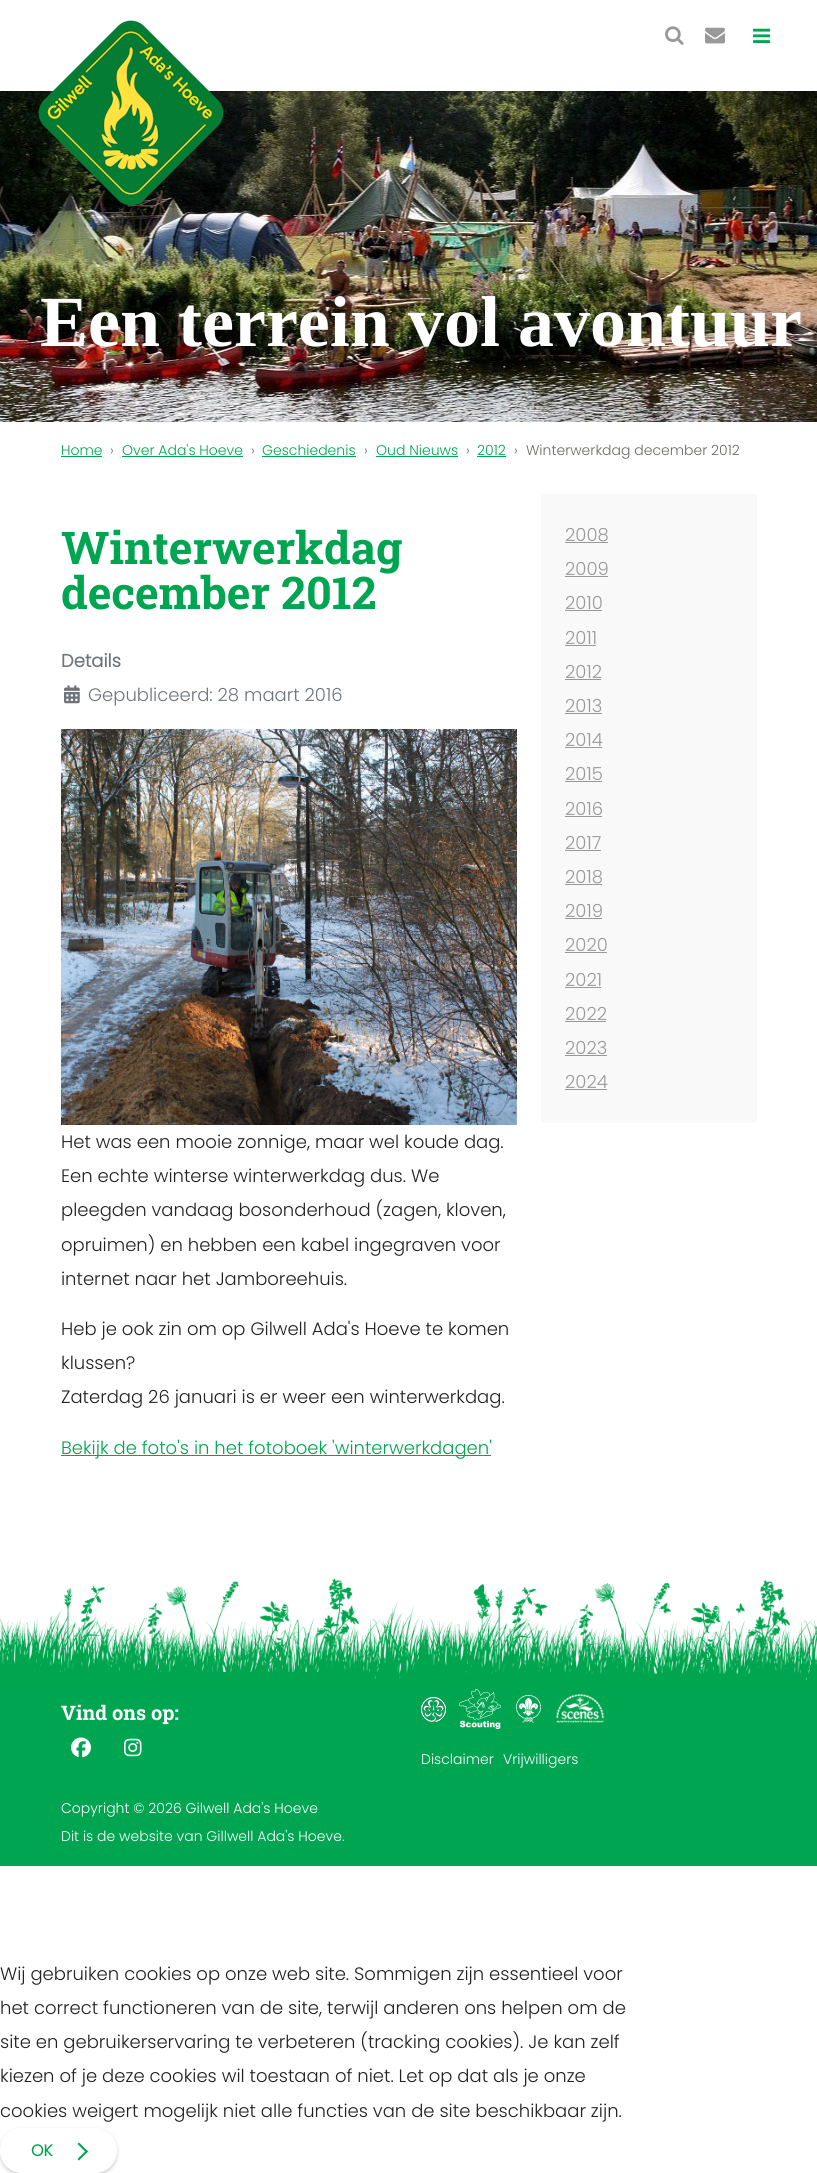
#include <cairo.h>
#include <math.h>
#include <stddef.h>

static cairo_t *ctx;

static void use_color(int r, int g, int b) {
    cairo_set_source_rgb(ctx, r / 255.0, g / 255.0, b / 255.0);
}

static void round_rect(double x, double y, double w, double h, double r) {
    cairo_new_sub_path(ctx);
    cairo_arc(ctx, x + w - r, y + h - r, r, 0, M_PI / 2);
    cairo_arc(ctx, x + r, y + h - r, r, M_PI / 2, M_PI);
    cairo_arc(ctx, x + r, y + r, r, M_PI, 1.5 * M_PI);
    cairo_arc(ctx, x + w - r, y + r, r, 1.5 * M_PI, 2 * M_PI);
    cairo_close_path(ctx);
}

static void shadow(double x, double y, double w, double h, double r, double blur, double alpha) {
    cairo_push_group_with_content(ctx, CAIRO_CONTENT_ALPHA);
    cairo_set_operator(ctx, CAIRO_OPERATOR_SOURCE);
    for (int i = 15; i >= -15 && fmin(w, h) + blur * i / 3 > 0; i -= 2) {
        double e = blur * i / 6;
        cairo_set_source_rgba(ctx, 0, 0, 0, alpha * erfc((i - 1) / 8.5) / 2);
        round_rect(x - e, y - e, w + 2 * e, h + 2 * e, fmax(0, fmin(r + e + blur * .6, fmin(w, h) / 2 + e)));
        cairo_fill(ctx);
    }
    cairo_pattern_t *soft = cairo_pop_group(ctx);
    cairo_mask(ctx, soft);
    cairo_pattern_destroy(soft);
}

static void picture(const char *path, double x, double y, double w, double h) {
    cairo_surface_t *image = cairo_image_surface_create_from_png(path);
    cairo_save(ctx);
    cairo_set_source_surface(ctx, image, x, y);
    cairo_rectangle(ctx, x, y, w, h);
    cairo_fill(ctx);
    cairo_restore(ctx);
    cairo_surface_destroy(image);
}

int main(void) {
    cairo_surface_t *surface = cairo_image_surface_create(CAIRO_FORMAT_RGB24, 817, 2173);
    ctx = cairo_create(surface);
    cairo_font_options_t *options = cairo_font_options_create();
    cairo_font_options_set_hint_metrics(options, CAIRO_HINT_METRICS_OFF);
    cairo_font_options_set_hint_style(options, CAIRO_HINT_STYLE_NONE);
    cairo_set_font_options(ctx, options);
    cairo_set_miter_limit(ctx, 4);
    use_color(255, 255, 255);
    cairo_paint(ctx);
    picture("img5.png", 0, 91, 817, 331);
    use_color(0, 0, 0);
    shadow(0, 0, 817, 91, 0, 2.5, 0.2);
    use_color(255, 255, 255);
    cairo_rectangle(ctx, 0, 0, 817, 91);
    cairo_fill(ctx);
    picture("img1.png", 38, 20, 186, 186);
    picture("img2.png", 665, 26, 19, 19);
    picture("img3.png", 705, 27, 20, 17);
    picture("img4.png", 753, 28, 18, 15);
    cairo_select_font_face(ctx, "Liberation Serif", CAIRO_FONT_SLANT_NORMAL, CAIRO_FONT_WEIGHT_BOLD);
    cairo_set_font_size(ctx, 72);
    cairo_move_to(ctx, 40, 346);
    cairo_show_text(ctx, "Een terrein vol avontuur");
    cairo_select_font_face(ctx, "Poppins Light", CAIRO_FONT_SLANT_NORMAL, CAIRO_FONT_WEIGHT_NORMAL);
    cairo_set_font_size(ctx, 14);
    use_color(0, 165, 81);
    cairo_move_to(ctx, 61, 455);
    cairo_show_text(ctx, "Home");
    cairo_rectangle(ctx, 61, 456, 41, 1);
    cairo_fill(ctx);
    use_color(108, 117, 125);
    cairo_move_to(ctx, 110, 455);
    cairo_show_text(ctx, "›");
    use_color(0, 165, 81);
    cairo_move_to(ctx, 122, 455);
    cairo_show_text(ctx, "Over Ada's Hoeve");
    cairo_rectangle(ctx, 122, 456, 121, 1);
    cairo_fill(ctx);
    use_color(108, 117, 125);
    cairo_move_to(ctx, 251, 455);
    cairo_show_text(ctx, "›");
    use_color(0, 165, 81);
    cairo_move_to(ctx, 262, 455);
    cairo_show_text(ctx, "Geschiedenis");
    cairo_rectangle(ctx, 262, 456, 94, 1);
    cairo_fill(ctx);
    use_color(108, 117, 125);
    cairo_move_to(ctx, 364, 455);
    cairo_show_text(ctx, "›");
    use_color(0, 165, 81);
    cairo_move_to(ctx, 376, 455);
    cairo_show_text(ctx, "Oud Nieuws");
    cairo_rectangle(ctx, 376, 456, 82, 1);
    cairo_fill(ctx);
    use_color(108, 117, 125);
    cairo_move_to(ctx, 466, 455);
    cairo_show_text(ctx, "›");
    use_color(0, 165, 81);
    cairo_move_to(ctx, 477, 455);
    cairo_show_text(ctx, "2012");
    cairo_rectangle(ctx, 477, 456, 29, 1);
    cairo_fill(ctx);
    use_color(108, 117, 125);
    cairo_move_to(ctx, 514, 455);
    cairo_show_text(ctx, "›");
    use_color(105, 105, 102);
    cairo_move_to(ctx, 526, 455);
    cairo_show_text(ctx, "Winterwerkdag december 2012");
    cairo_select_font_face(ctx, "Roboto Slab", CAIRO_FONT_SLANT_NORMAL, CAIRO_FONT_WEIGHT_BOLD);
    cairo_set_font_size(ctx, 45);
    use_color(0, 165, 81);
    cairo_move_to(ctx, 61, 564);
    cairo_show_text(ctx, "Winterwerkdag");
    cairo_move_to(ctx, 61, 609);
    cairo_show_text(ctx, "december 2012");
    cairo_select_font_face(ctx, "Poppins", CAIRO_FONT_SLANT_NORMAL, CAIRO_FONT_WEIGHT_BOLD);
    cairo_set_font_size(ctx, 18);
    use_color(108, 117, 125);
    cairo_move_to(ctx, 61, 667);
    cairo_show_text(ctx, "Details");
    picture("img6.png", 64, 685, 16, 19);
    cairo_select_font_face(ctx, "Poppins Light", CAIRO_FONT_SLANT_NORMAL, CAIRO_FONT_WEIGHT_NORMAL);
    cairo_move_to(ctx, 88, 701);
    cairo_show_text(ctx, "Gepubliceerd: 28 maart 2016");
    picture("img7.png", 61, 729, 456, 396);
    use_color(34, 34, 34);
    cairo_move_to(ctx, 61, 1148);
    cairo_show_text(ctx, "Het was een mooie zonnige, maar wel koude dag.");
    cairo_move_to(ctx, 61, 1182);
    cairo_show_text(ctx, "Een echte winterse winterwerkdag dus. We");
    cairo_move_to(ctx, 61, 1216);
    cairo_show_text(ctx, "pleegden vandaag bosonderhoud (zagen, kloven,");
    cairo_move_to(ctx, 61, 1251);
    cairo_show_text(ctx, "opruimen) en hebben een kabel ingegraven voor");
    cairo_move_to(ctx, 61, 1285);
    cairo_show_text(ctx, "internet naar het Jamboreehuis.");
    cairo_move_to(ctx, 61, 1335);
    cairo_show_text(ctx, "Heb je ook zin om op Gilwell Ada's Hoeve te komen");
    cairo_move_to(ctx, 61, 1369);
    cairo_show_text(ctx, "klussen?");
    cairo_move_to(ctx, 61, 1403);
    cairo_show_text(ctx, "Zaterdag 26 januari is er weer een winterwerkdag.");
    use_color(0, 165, 81);
    cairo_rectangle(ctx, 61, 1455, 430, 1);
    cairo_fill(ctx);
    cairo_move_to(ctx, 61, 1454);
    cairo_show_text(ctx, "Bekijk de foto's in het fotoboek 'winterwerkdagen'");
    use_color(249, 249, 249);
    round_rect(541, 494, 216, 629, 3);
    cairo_fill(ctx);
    use_color(153, 153, 153);
    cairo_move_to(ctx, 565, 541);
    cairo_show_text(ctx, "2008");
    cairo_rectangle(ctx, 565, 542, 43, 1);
    cairo_fill(ctx);
    cairo_move_to(ctx, 565, 575);
    cairo_show_text(ctx, "2009");
    cairo_rectangle(ctx, 565, 576, 43, 1);
    cairo_fill(ctx);
    cairo_move_to(ctx, 565, 609);
    cairo_show_text(ctx, "2010");
    cairo_rectangle(ctx, 565, 610, 37, 1);
    cairo_fill(ctx);
    cairo_move_to(ctx, 565, 644);
    cairo_show_text(ctx, "2011");
    cairo_rectangle(ctx, 565, 645, 31, 1);
    cairo_fill(ctx);
    cairo_move_to(ctx, 565, 678);
    cairo_show_text(ctx, "2012");
    cairo_rectangle(ctx, 565, 679, 36, 1);
    cairo_fill(ctx);
    cairo_move_to(ctx, 565, 712);
    cairo_show_text(ctx, "2013");
    cairo_rectangle(ctx, 565, 713, 37, 1);
    cairo_fill(ctx);
    cairo_move_to(ctx, 565, 746);
    cairo_show_text(ctx, "2014");
    cairo_rectangle(ctx, 565, 747, 37, 1);
    cairo_fill(ctx);
    cairo_move_to(ctx, 565, 780);
    cairo_show_text(ctx, "2015");
    cairo_rectangle(ctx, 565, 781, 37, 1);
    cairo_fill(ctx);
    cairo_move_to(ctx, 565, 815);
    cairo_show_text(ctx, "2016");
    cairo_rectangle(ctx, 565, 816, 37, 1);
    cairo_fill(ctx);
    cairo_move_to(ctx, 565, 849);
    cairo_show_text(ctx, "2017");
    cairo_rectangle(ctx, 565, 850, 36, 1);
    cairo_fill(ctx);
    cairo_move_to(ctx, 565, 883);
    cairo_show_text(ctx, "2018");
    cairo_rectangle(ctx, 565, 884, 37, 1);
    cairo_fill(ctx);
    cairo_move_to(ctx, 565, 917);
    cairo_show_text(ctx, "2019");
    cairo_rectangle(ctx, 565, 918, 37, 1);
    cairo_fill(ctx);
    cairo_move_to(ctx, 565, 951);
    cairo_show_text(ctx, "2020");
    cairo_rectangle(ctx, 565, 952, 42, 1);
    cairo_fill(ctx);
    cairo_move_to(ctx, 565, 986);
    cairo_show_text(ctx, "2021");
    cairo_rectangle(ctx, 565, 987, 36, 1);
    cairo_fill(ctx);
    cairo_move_to(ctx, 565, 1020);
    cairo_show_text(ctx, "2022");
    cairo_rectangle(ctx, 565, 1021, 41, 1);
    cairo_fill(ctx);
    cairo_move_to(ctx, 565, 1054);
    cairo_show_text(ctx, "2023");
    cairo_rectangle(ctx, 565, 1055, 42, 1);
    cairo_fill(ctx);
    cairo_move_to(ctx, 565, 1088);
    cairo_show_text(ctx, "2024");
    cairo_rectangle(ctx, 565, 1089, 42, 1);
    cairo_fill(ctx);
    picture("img8.png", 0, 1579, 817, 110);
    use_color(0, 165, 81);
    cairo_rectangle(ctx, 0, 1689, 817, 177);
    cairo_fill(ctx);
    cairo_select_font_face(ctx, "Roboto Slab", CAIRO_FONT_SLANT_NORMAL, CAIRO_FONT_WEIGHT_BOLD);
    cairo_set_font_size(ctx, 20);
    use_color(255, 255, 255);
    cairo_move_to(ctx, 61, 1720);
    cairo_show_text(ctx, "Vind ons op:");
    picture("img9.png", 71, 1737, 20, 21);
    picture("img10.png", 124, 1738, 18, 19);
    cairo_select_font_face(ctx, "Poppins Light", CAIRO_FONT_SLANT_NORMAL, CAIRO_FONT_WEIGHT_NORMAL);
    cairo_set_font_size(ctx, 14);
    cairo_move_to(ctx, 61, 1813);
    cairo_show_text(ctx, "Copyright © 2026 Gilwell Ada's Hoeve");
    cairo_move_to(ctx, 61, 1841);
    cairo_show_text(ctx, "Dit is de website van Gillwell Ada's Hoeve.");
    picture("img11.png", 421, 1697, 25, 25);
    picture("img12.png", 459, 1689, 42, 40);
    picture("img13.png", 516, 1695, 25, 28);
    picture("img14.png", 556, 1693, 49, 30);
    cairo_move_to(ctx, 421, 1764);
    cairo_show_text(ctx, "Disclaimer");
    cairo_move_to(ctx, 503, 1764);
    cairo_show_text(ctx, "Vrijwilligers");
    cairo_set_font_size(ctx, 18);
    use_color(34, 34, 34);
    cairo_move_to(ctx, 0, 1980);
    cairo_show_text(ctx, "Wij gebruiken cookies op onze web site. Sommigen zijn essentieel voor");
    cairo_move_to(ctx, 0, 2014);
    cairo_show_text(ctx, "het correct functioneren van de site, terwijl anderen ons helpen om de");
    cairo_move_to(ctx, 0, 2048);
    cairo_show_text(ctx, "site en gebruikerservaring te verbeteren (tracking cookies). Je kan zelf");
    cairo_move_to(ctx, 0, 2082);
    cairo_show_text(ctx, "kiezen of je deze cookies wil toestaan of niet. Let op dat als je onze");
    cairo_move_to(ctx, 0, 2117);
    cairo_show_text(ctx, "cookies weigert mogelijk niet alle functies van de site beschikbaar zijn.");
    cairo_save(ctx);
    cairo_set_fill_rule(ctx, CAIRO_FILL_RULE_EVEN_ODD);
    cairo_new_path(ctx);
    cairo_move_to(ctx, 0, 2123);
    cairo_line_to(ctx, 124, 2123);
    cairo_line_to(ctx, 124, 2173);
    cairo_line_to(ctx, 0, 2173);
    cairo_close_path(ctx);
    cairo_move_to(ctx, 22.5, 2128);
    cairo_line_to(ctx, 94.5, 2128);
    cairo_curve_to(ctx, 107, 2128, 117, 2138, 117, 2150.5);
    cairo_curve_to(ctx, 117, 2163, 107, 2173, 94.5, 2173);
    cairo_line_to(ctx, 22.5, 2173);
    cairo_curve_to(ctx, 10, 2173, 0, 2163, 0, 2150.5);
    cairo_curve_to(ctx, 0, 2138, 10, 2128, 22.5, 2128);
    cairo_close_path(ctx);
    cairo_clip(ctx);
    use_color(0, 0, 0);
    shadow(0, 2130, 117, 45, 22.5, 2, 0.2);
    cairo_restore(ctx);
    cairo_select_font_face(ctx, "Poppins", CAIRO_FONT_SLANT_NORMAL, CAIRO_FONT_WEIGHT_BOLD);
    cairo_set_font_size(ctx, 16);
    use_color(0, 165, 81);
    cairo_move_to(ctx, 31, 2156);
    cairo_show_text(ctx, "OK");
    cairo_new_path(ctx);
    cairo_move_to(ctx, 79, 2142.5);
    cairo_line_to(ctx, 88, 2151.5);
    cairo_line_to(ctx, 86.5, 2153);
    cairo_line_to(ctx, 77.5, 2144);
    cairo_close_path(ctx);
    cairo_fill(ctx);
    cairo_new_path(ctx);
    cairo_move_to(ctx, 86.5, 2150);
    cairo_line_to(ctx, 88, 2151.5);
    cairo_line_to(ctx, 79, 2160.5);
    cairo_line_to(ctx, 77.5, 2159);
    cairo_close_path(ctx);
    cairo_fill(ctx);
    cairo_surface_write_to_png(surface, "result.png");
    cairo_font_options_destroy(options);
    cairo_destroy(ctx);
    cairo_surface_destroy(surface);
    return 0;
}
